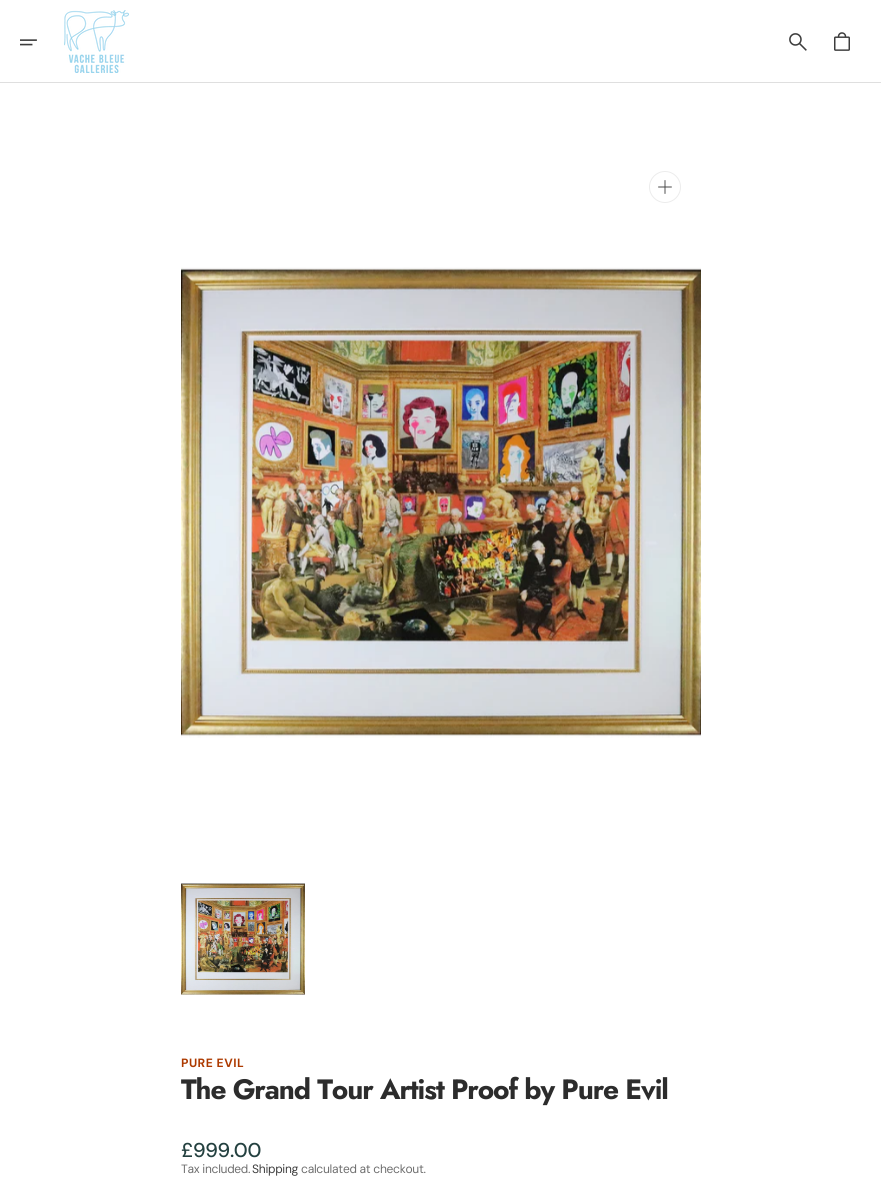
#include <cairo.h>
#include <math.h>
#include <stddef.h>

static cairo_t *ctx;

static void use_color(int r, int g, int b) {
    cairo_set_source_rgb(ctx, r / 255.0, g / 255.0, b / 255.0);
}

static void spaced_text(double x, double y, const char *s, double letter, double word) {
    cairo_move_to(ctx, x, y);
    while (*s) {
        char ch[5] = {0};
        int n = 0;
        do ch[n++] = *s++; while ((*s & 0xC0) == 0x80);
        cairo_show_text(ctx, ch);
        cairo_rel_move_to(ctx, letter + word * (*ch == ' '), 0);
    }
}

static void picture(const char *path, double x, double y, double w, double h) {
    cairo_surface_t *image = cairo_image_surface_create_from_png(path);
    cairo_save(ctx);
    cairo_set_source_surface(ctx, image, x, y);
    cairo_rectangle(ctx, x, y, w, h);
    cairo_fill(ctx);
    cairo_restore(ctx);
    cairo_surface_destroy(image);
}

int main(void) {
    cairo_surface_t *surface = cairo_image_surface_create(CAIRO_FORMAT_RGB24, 881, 1194);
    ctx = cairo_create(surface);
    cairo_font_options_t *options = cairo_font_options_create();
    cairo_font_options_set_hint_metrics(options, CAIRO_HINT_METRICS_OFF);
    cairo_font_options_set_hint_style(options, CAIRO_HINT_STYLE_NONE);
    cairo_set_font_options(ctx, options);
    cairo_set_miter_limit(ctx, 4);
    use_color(255, 255, 255);
    cairo_paint(ctx);
    picture("img1.png", 20, 39, 17, 7);
    picture("img2.png", 64, 10, 65, 63);
    picture("img3.png", 789, 33, 18, 18);
    picture("img4.png", 834, 32, 16, 19);
    use_color(223, 223, 223);
    cairo_rectangle(ctx, 0, 82, 881, 1);
    cairo_fill(ctx);
    cairo_arc(ctx, 665, 187, 15.5, 0, 2 * M_PI);
    use_color(236, 236, 236);
    cairo_set_line_width(ctx, 1);
    cairo_stroke(ctx);
    cairo_new_path(ctx);
    cairo_move_to(ctx, 665, 180.5);
    cairo_line_to(ctx, 665, 193.5);
    cairo_move_to(ctx, 671.5, 187);
    cairo_line_to(ctx, 658.5, 187);
    use_color(61, 61, 61);
    cairo_set_line_width(ctx, 0.9);
    cairo_set_line_cap(ctx, CAIRO_LINE_CAP_ROUND);
    cairo_stroke(ctx);
    picture("img5.png", 181, 267, 520, 471);
    picture("img6.png", 181, 883, 124, 112);
    cairo_select_font_face(ctx, "DM Sans", CAIRO_FONT_SLANT_NORMAL, CAIRO_FONT_WEIGHT_BOLD);
    cairo_set_font_size(ctx, 12);
    use_color(173, 58, 0);
    spaced_text(181, 1067, "PURE EVIL", 0.5, 0);
    cairo_select_font_face(ctx, "Jost", CAIRO_FONT_SLANT_NORMAL, CAIRO_FONT_WEIGHT_BOLD);
    cairo_set_font_size(ctx, 28);
    use_color(44, 44, 44);
    spaced_text(181, 1099, "The Grand Tour Artist Proof by Pure Evil", -1.1, 0);
    cairo_select_font_face(ctx, "DM Sans Medium", CAIRO_FONT_SLANT_NORMAL, CAIRO_FONT_WEIGHT_NORMAL);
    cairo_set_font_size(ctx, 20);
    use_color(36, 65, 64);
    spaced_text(181, 1157, "£999.00", -0.3, 0);
    cairo_select_font_face(ctx, "DM Sans", CAIRO_FONT_SLANT_NORMAL, CAIRO_FONT_WEIGHT_NORMAL);
    cairo_set_font_size(ctx, 12);
    use_color(109, 109, 109);
    spaced_text(181, 1173, "Tax included.", -0.3, 0);
    use_color(61, 61, 61);
    spaced_text(252, 1173, "Shipping", -0.3, 0);
    use_color(109, 109, 109);
    spaced_text(301, 1173, "calculated at checkout.", -0.3, 0);
    cairo_surface_write_to_png(surface, "result.png");
    cairo_font_options_destroy(options);
    cairo_destroy(ctx);
    cairo_surface_destroy(surface);
    return 0;
}
